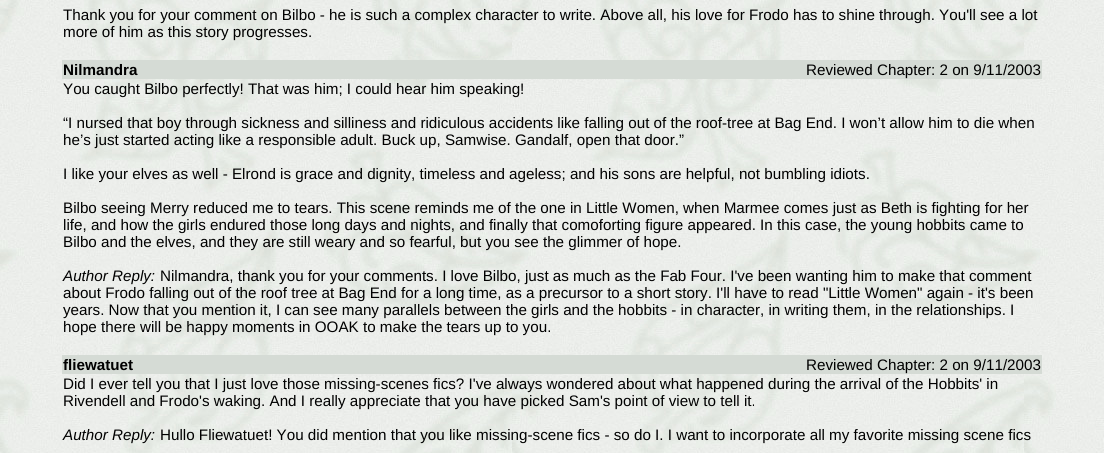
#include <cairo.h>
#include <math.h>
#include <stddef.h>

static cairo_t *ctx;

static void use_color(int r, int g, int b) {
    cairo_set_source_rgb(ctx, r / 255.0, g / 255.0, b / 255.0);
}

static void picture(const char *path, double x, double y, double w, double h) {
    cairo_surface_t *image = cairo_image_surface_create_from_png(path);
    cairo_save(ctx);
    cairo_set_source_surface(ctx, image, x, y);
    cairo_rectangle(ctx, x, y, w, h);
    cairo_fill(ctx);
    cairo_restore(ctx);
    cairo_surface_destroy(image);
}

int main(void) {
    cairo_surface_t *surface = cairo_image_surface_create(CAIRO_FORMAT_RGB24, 1104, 453);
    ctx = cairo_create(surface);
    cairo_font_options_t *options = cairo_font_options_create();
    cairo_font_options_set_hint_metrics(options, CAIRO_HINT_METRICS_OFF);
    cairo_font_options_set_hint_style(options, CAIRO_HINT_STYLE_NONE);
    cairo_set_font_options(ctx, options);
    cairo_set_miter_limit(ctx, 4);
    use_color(255, 255, 255);
    cairo_paint(ctx);
    picture("img1.png", 0, 0, 1104, 453);
    cairo_select_font_face(ctx, "Liberation Sans", CAIRO_FONT_SLANT_NORMAL, CAIRO_FONT_WEIGHT_NORMAL);
    cairo_set_font_size(ctx, 15.2);
    use_color(0, 0, 0);
    cairo_move_to(ctx, 63, 20);
    cairo_show_text(ctx, "Thank you for your comment on Bilbo - he is such a complex character to write. Above all, his love for Frodo has to shine through. You'll see a lot");
    cairo_move_to(ctx, 63, 37);
    cairo_show_text(ctx, "more of him as this story progresses.");
    use_color(213, 219, 213);
    cairo_rectangle(ctx, 62, 60, 980, 19);
    cairo_fill(ctx);
    cairo_select_font_face(ctx, "Liberation Sans", CAIRO_FONT_SLANT_NORMAL, CAIRO_FONT_WEIGHT_BOLD);
    use_color(0, 0, 0);
    cairo_move_to(ctx, 63, 75);
    cairo_show_text(ctx, "Nilmandra");
    cairo_select_font_face(ctx, "Liberation Sans", CAIRO_FONT_SLANT_NORMAL, CAIRO_FONT_WEIGHT_NORMAL);
    cairo_move_to(ctx, 806, 75);
    cairo_show_text(ctx, "Reviewed Chapter: 2 on 9/11/2003");
    cairo_move_to(ctx, 63, 94);
    cairo_show_text(ctx, "You caught Bilbo perfectly! That was him; I could hear him speaking!");
    cairo_move_to(ctx, 63, 128);
    cairo_show_text(ctx, "“I nursed that boy through sickness and silliness and ridiculous accidents like falling out of the roof-tree at Bag End. I won’t allow him to die when");
    cairo_move_to(ctx, 63, 145);
    cairo_show_text(ctx, "he’s just started acting like a responsible adult. Buck up, Samwise. Gandalf, open that door.”");
    cairo_move_to(ctx, 63, 179);
    cairo_show_text(ctx, "I like your elves as well - Elrond is grace and dignity, timeless and ageless; and his sons are helpful, not bumbling idiots.");
    cairo_move_to(ctx, 63, 213);
    cairo_show_text(ctx, "Bilbo seeing Merry reduced me to tears. This scene reminds me of the one in Little Women, when Marmee comes just as Beth is fighting for her");
    cairo_move_to(ctx, 63, 230);
    cairo_show_text(ctx, "life, and how the girls endured those long days and nights, and finally that comoforting figure appeared. In this case, the young hobbits came to");
    cairo_move_to(ctx, 63, 247);
    cairo_show_text(ctx, "Bilbo and the elves, and they are still weary and so fearful, but you see the glimmer of hope.");
    cairo_select_font_face(ctx, "Liberation Sans", CAIRO_FONT_SLANT_ITALIC, CAIRO_FONT_WEIGHT_NORMAL);
    cairo_move_to(ctx, 63, 281);
    cairo_show_text(ctx, "Author Reply:");
    cairo_select_font_face(ctx, "Liberation Sans", CAIRO_FONT_SLANT_NORMAL, CAIRO_FONT_WEIGHT_NORMAL);
    cairo_move_to(ctx, 160, 281);
    cairo_show_text(ctx, "Nilmandra, thank you for your comments. I love Bilbo, just as much as the Fab Four. I've been wanting him to make that comment");
    cairo_move_to(ctx, 63, 298);
    cairo_show_text(ctx, "about Frodo falling out of the roof tree at Bag End for a long time, as a precursor to a short story. I'll have to read \"Little Women\" again - it's been");
    cairo_move_to(ctx, 63, 315);
    cairo_show_text(ctx, "years. Now that you mention it, I can see many parallels between the girls and the hobbits - in character, in writing them, in the relationships. I");
    cairo_move_to(ctx, 63, 332);
    cairo_show_text(ctx, "hope there will be happy moments in OOAK to make the tears up to you.");
    use_color(213, 219, 213);
    cairo_rectangle(ctx, 62, 355, 980, 19);
    cairo_fill(ctx);
    cairo_select_font_face(ctx, "Liberation Sans", CAIRO_FONT_SLANT_NORMAL, CAIRO_FONT_WEIGHT_BOLD);
    use_color(0, 0, 0);
    cairo_move_to(ctx, 63, 370);
    cairo_show_text(ctx, "fliewatuet");
    cairo_select_font_face(ctx, "Liberation Sans", CAIRO_FONT_SLANT_NORMAL, CAIRO_FONT_WEIGHT_NORMAL);
    cairo_move_to(ctx, 806, 370);
    cairo_show_text(ctx, "Reviewed Chapter: 2 on 9/11/2003");
    cairo_move_to(ctx, 63, 389);
    cairo_show_text(ctx, "Did I ever tell you that I just love those missing-scenes fics? I've always wondered about what happened during the arrival of the Hobbits' in");
    cairo_move_to(ctx, 63, 406);
    cairo_show_text(ctx, "Rivendell and Frodo's waking. And I really appreciate that you have picked Sam's point of view to tell it.");
    cairo_select_font_face(ctx, "Liberation Sans", CAIRO_FONT_SLANT_ITALIC, CAIRO_FONT_WEIGHT_NORMAL);
    cairo_move_to(ctx, 63, 440);
    cairo_show_text(ctx, "Author Reply:");
    cairo_select_font_face(ctx, "Liberation Sans", CAIRO_FONT_SLANT_NORMAL, CAIRO_FONT_WEIGHT_NORMAL);
    cairo_move_to(ctx, 160, 440);
    cairo_show_text(ctx, "Hullo Fliewatuet! You did mention that you like missing-scene fics - so do I. I want to incorporate all my favorite missing scene fics");
    cairo_surface_write_to_png(surface, "result.png");
    cairo_font_options_destroy(options);
    cairo_destroy(ctx);
    cairo_surface_destroy(surface);
    return 0;
}
